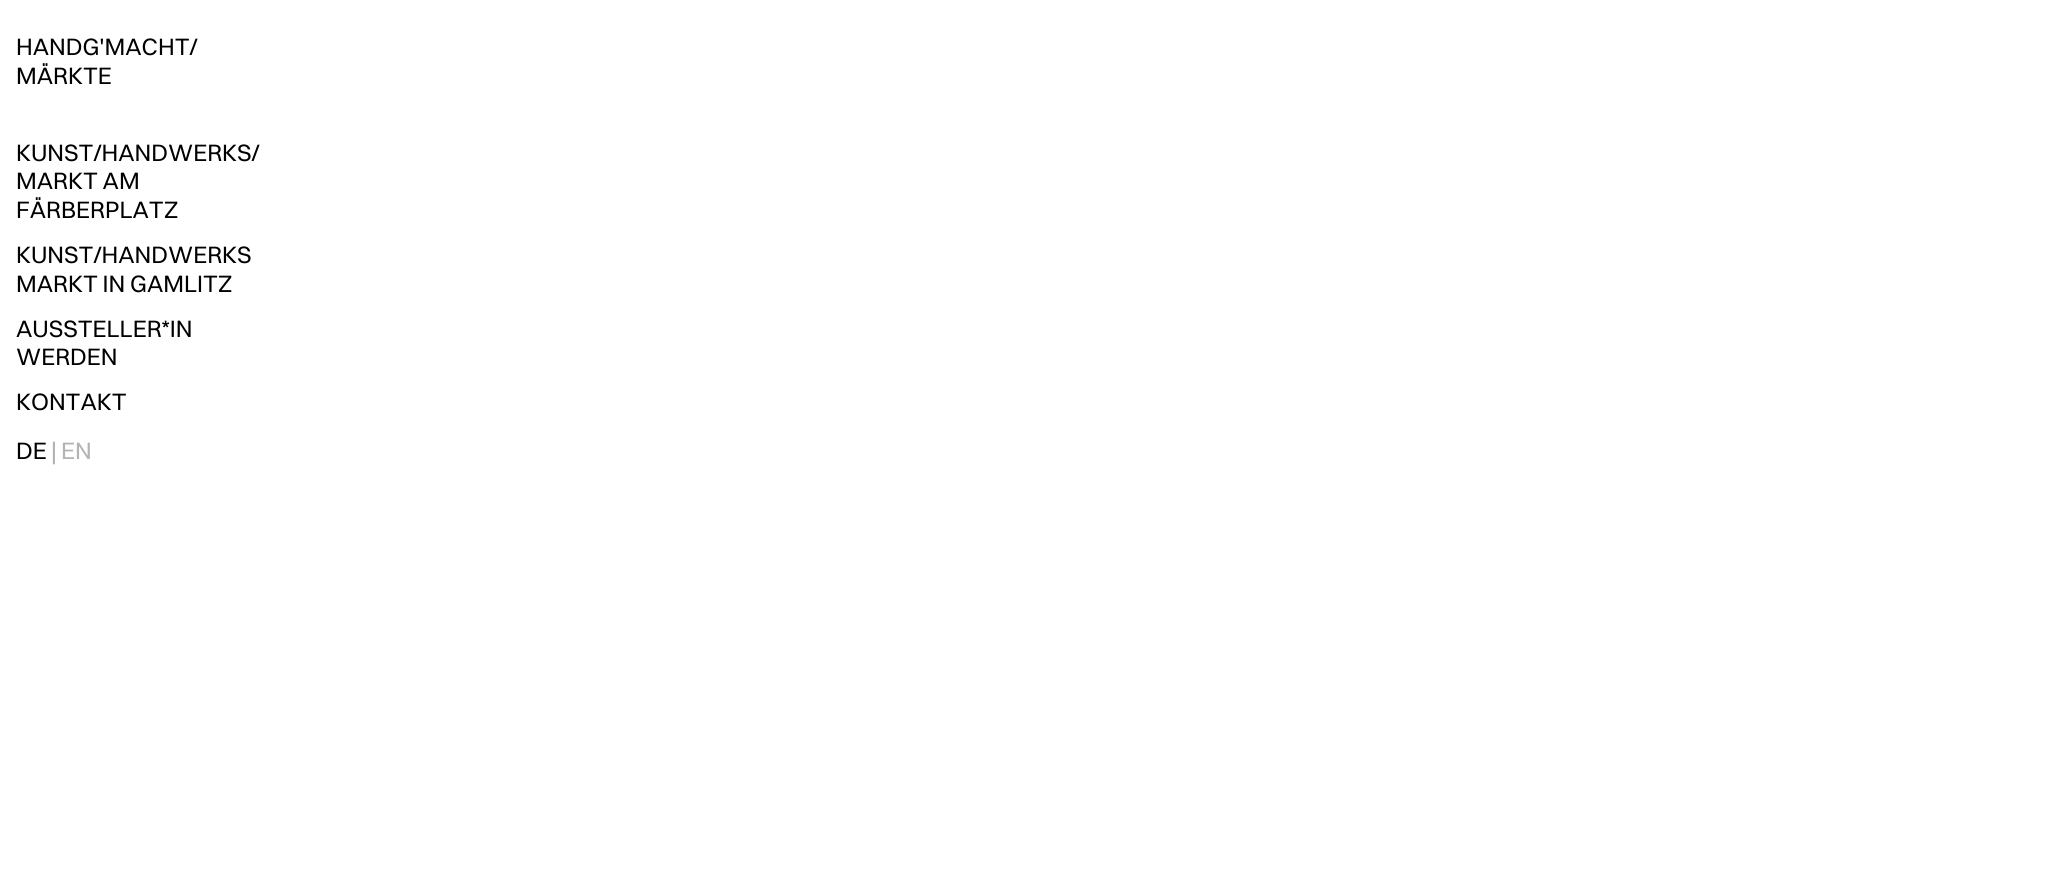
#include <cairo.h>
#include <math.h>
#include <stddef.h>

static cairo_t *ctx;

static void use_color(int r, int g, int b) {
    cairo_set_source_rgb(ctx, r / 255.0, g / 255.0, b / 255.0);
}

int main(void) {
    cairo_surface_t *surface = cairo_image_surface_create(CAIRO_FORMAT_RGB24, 2071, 882);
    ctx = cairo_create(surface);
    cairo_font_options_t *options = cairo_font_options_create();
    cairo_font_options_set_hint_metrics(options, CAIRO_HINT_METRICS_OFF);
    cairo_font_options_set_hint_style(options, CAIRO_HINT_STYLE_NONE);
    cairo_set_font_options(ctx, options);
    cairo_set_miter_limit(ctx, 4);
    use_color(255, 255, 255);
    cairo_paint(ctx);
    cairo_select_font_face(ctx, "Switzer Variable", CAIRO_FONT_SLANT_NORMAL, CAIRO_FONT_WEIGHT_NORMAL);
    cairo_set_font_size(ctx, 24);
    use_color(0, 0, 0);
    cairo_move_to(ctx, 16, 55);
    cairo_show_text(ctx, "HANDG'MACHT/");
    cairo_move_to(ctx, 16, 84);
    cairo_show_text(ctx, "MÄRKTE");
    cairo_move_to(ctx, 16, 161);
    cairo_show_text(ctx, "KUNST/HANDWERKS/");
    cairo_move_to(ctx, 16, 189);
    cairo_show_text(ctx, "MARKT AM");
    cairo_move_to(ctx, 16, 218);
    cairo_show_text(ctx, "FÄRBERPLATZ");
    cairo_move_to(ctx, 16, 263);
    cairo_show_text(ctx, "KUNST/HANDWERKS");
    cairo_move_to(ctx, 16, 292);
    cairo_show_text(ctx, "MARKT IN GAMLITZ");
    cairo_move_to(ctx, 16, 337);
    cairo_show_text(ctx, "AUSSTELLER*IN");
    cairo_move_to(ctx, 16, 365);
    cairo_show_text(ctx, "WERDEN");
    cairo_move_to(ctx, 16, 410);
    cairo_show_text(ctx, "KONTAKT");
    cairo_move_to(ctx, 16, 459);
    cairo_show_text(ctx, "DE");
    use_color(179, 179, 179);
    cairo_move_to(ctx, 51, 459);
    cairo_show_text(ctx, "|");
    cairo_move_to(ctx, 61, 459);
    cairo_show_text(ctx, "EN");
    cairo_surface_write_to_png(surface, "result.png");
    cairo_font_options_destroy(options);
    cairo_destroy(ctx);
    cairo_surface_destroy(surface);
    return 0;
}
